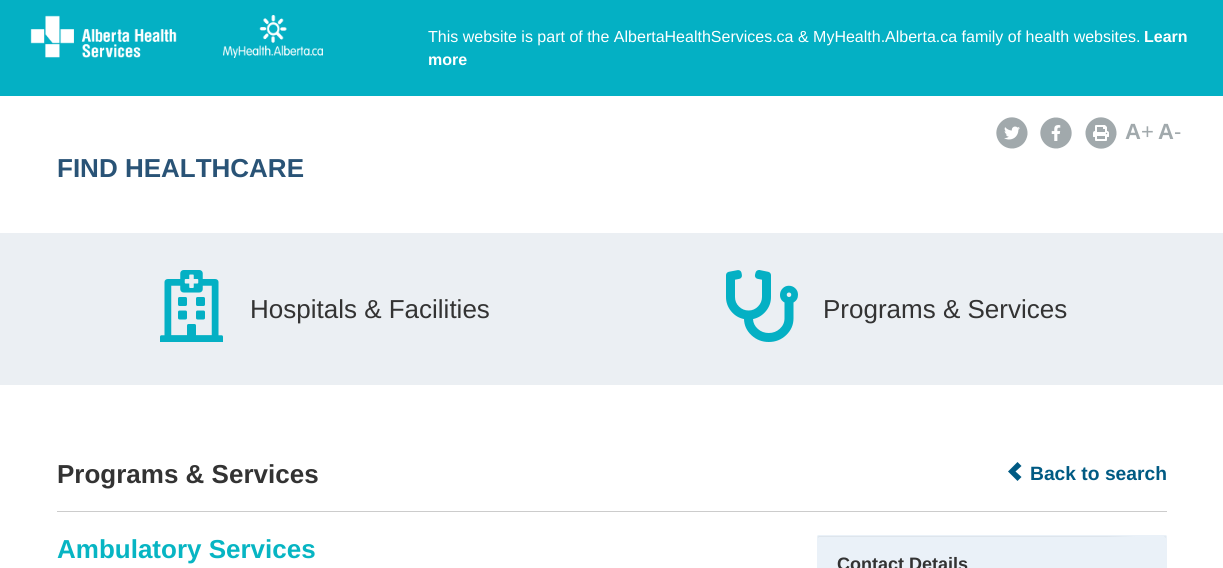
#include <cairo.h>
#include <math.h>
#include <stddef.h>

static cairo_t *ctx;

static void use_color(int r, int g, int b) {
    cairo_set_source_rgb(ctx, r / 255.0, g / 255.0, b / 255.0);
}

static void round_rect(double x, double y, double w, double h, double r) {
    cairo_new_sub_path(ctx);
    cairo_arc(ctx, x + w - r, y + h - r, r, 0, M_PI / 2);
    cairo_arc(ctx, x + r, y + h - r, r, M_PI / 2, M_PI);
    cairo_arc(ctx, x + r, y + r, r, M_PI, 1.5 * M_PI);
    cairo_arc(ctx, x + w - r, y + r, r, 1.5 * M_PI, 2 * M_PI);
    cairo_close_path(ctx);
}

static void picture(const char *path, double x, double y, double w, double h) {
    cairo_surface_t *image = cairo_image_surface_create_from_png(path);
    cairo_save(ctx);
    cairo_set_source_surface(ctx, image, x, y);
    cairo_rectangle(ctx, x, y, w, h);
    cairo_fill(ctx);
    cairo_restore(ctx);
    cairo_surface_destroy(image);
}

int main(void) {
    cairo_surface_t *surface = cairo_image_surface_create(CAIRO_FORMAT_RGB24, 1223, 568);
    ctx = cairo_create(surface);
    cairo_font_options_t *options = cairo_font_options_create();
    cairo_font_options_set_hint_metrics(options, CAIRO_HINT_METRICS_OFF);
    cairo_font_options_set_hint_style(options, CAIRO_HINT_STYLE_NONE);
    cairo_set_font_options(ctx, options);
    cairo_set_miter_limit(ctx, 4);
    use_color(255, 255, 255);
    cairo_paint(ctx);
    use_color(4, 176, 196);
    cairo_rectangle(ctx, 0, 0, 1223, 96);
    cairo_fill(ctx);
    picture("img1.png", 30, 15, 147, 43);
    picture("img2.png", 223, 15, 100, 43);
    cairo_select_font_face(ctx, "Liberation Sans", CAIRO_FONT_SLANT_NORMAL, CAIRO_FONT_WEIGHT_NORMAL);
    cairo_set_font_size(ctx, 16);
    use_color(255, 255, 255);
    cairo_move_to(ctx, 428, 42);
    cairo_show_text(ctx, "This website is part of the AlbertaHealthServices.ca & MyHealth.Alberta.ca family of health websites.");
    cairo_select_font_face(ctx, "Liberation Sans", CAIRO_FONT_SLANT_NORMAL, CAIRO_FONT_WEIGHT_BOLD);
    cairo_move_to(ctx, 1144, 42);
    cairo_show_text(ctx, "Learn");
    cairo_move_to(ctx, 428, 65);
    cairo_show_text(ctx, "more");
    use_color(161, 169, 172);
    cairo_new_path(ctx);
    cairo_move_to(ctx, 1001, 122);
    cairo_curve_to(ctx, 1011.5, 111.5, 1028.5, 120, 1027.5, 134.5);
    cairo_curve_to(ctx, 1027, 138, 1025.5, 141.5, 1023, 144);
    cairo_curve_to(ctx, 1020.5, 146.5, 1017, 148, 1013.5, 148.5);
    cairo_curve_to(ctx, 999, 149.5, 990.5, 132.5, 1001, 122);
    cairo_close_path(ctx);
    cairo_fill(ctx);
    picture("img3.png", 1004, 126, 16, 14);
    cairo_new_path(ctx);
    cairo_move_to(ctx, 1045, 122);
    cairo_curve_to(ctx, 1047.5, 119.5, 1051, 118, 1054.5, 117.5);
    cairo_curve_to(ctx, 1069, 116.5, 1077.5, 133.5, 1067, 144);
    cairo_curve_to(ctx, 1064.5, 146.5, 1061, 148, 1057.5, 148.5);
    cairo_curve_to(ctx, 1043, 149.5, 1034.5, 132.5, 1045, 122);
    cairo_close_path(ctx);
    cairo_fill(ctx);
    picture("img4.png", 1051, 125, 10, 16);
    cairo_new_path(ctx);
    cairo_move_to(ctx, 1090, 122);
    cairo_curve_to(ctx, 1100.5, 111.5, 1117.5, 120, 1116.5, 134.5);
    cairo_curve_to(ctx, 1116, 138, 1114.5, 141.5, 1112, 144);
    cairo_curve_to(ctx, 1101.5, 154.5, 1084.5, 146, 1085.5, 131.5);
    cairo_curve_to(ctx, 1086, 128, 1087.5, 124.5, 1090, 122);
    cairo_close_path(ctx);
    cairo_fill(ctx);
    picture("img5.png", 1093, 125, 16, 16);
    cairo_set_font_size(ctx, 22);
    cairo_move_to(ctx, 1125, 139);
    cairo_show_text(ctx, "A");
    cairo_select_font_face(ctx, "Liberation Sans", CAIRO_FONT_SLANT_NORMAL, CAIRO_FONT_WEIGHT_NORMAL);
    cairo_move_to(ctx, 1141, 139);
    cairo_show_text(ctx, "+");
    cairo_select_font_face(ctx, "Liberation Sans", CAIRO_FONT_SLANT_NORMAL, CAIRO_FONT_WEIGHT_BOLD);
    cairo_move_to(ctx, 1158, 139);
    cairo_show_text(ctx, "A");
    cairo_select_font_face(ctx, "Liberation Sans", CAIRO_FONT_SLANT_NORMAL, CAIRO_FONT_WEIGHT_NORMAL);
    cairo_move_to(ctx, 1174, 139);
    cairo_show_text(ctx, "-");
    cairo_select_font_face(ctx, "Liberation Sans", CAIRO_FONT_SLANT_NORMAL, CAIRO_FONT_WEIGHT_BOLD);
    cairo_set_font_size(ctx, 26);
    use_color(41, 83, 118);
    cairo_move_to(ctx, 57, 177);
    cairo_show_text(ctx, "FIND HEALTHCARE");
    use_color(235, 239, 243);
    cairo_rectangle(ctx, 0, 233, 1223, 152);
    cairo_fill(ctx);
    picture("img6.png", 160, 270, 63, 72);
    cairo_select_font_face(ctx, "Liberation Sans", CAIRO_FONT_SLANT_NORMAL, CAIRO_FONT_WEIGHT_NORMAL);
    use_color(51, 51, 51);
    cairo_move_to(ctx, 250, 318);
    cairo_show_text(ctx, "Hospitals & Facilities");
    picture("img7.png", 726, 270, 72, 72);
    cairo_move_to(ctx, 823, 318);
    cairo_show_text(ctx, "Programs & Services");
    cairo_select_font_face(ctx, "Liberation Sans", CAIRO_FONT_SLANT_NORMAL, CAIRO_FONT_WEIGHT_BOLD);
    cairo_move_to(ctx, 57, 483);
    cairo_show_text(ctx, "Programs & Services");
    use_color(0, 90, 131);
    cairo_new_path(ctx);
    cairo_move_to(ctx, 1008, 471.5);
    cairo_line_to(ctx, 1017.5, 481);
    cairo_line_to(ctx, 1021.5, 477);
    cairo_line_to(ctx, 1015.5, 471.5);
    cairo_line_to(ctx, 1021.5, 466);
    cairo_line_to(ctx, 1017.5, 462);
    cairo_close_path(ctx);
    cairo_fill(ctx);
    cairo_set_font_size(ctx, 19.25);
    cairo_move_to(ctx, 1030, 480);
    cairo_show_text(ctx, "Back to search");
    use_color(204, 204, 204);
    cairo_rectangle(ctx, 57, 511, 1110, 1);
    cairo_fill(ctx);
    cairo_set_font_size(ctx, 26);
    use_color(7, 181, 195);
    cairo_move_to(ctx, 57, 558);
    cairo_show_text(ctx, "Ambulatory Services");
    use_color(234, 241, 248);
    round_rect(817, 535, 350, 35, 2);
    cairo_fill(ctx);
    use_color(222, 229, 236);
    cairo_set_fill_rule(ctx, CAIRO_FILL_RULE_EVEN_ODD);
    cairo_new_path(ctx);
    cairo_move_to(ctx, 819, 537);
    cairo_line_to(ctx, 818, 538);
    cairo_line_to(ctx, 818, 536);
    cairo_line_to(ctx, 819, 536);
    cairo_line_to(ctx, 1136, 536);
    cairo_line_to(ctx, 1107, 537);
    cairo_close_path(ctx);
    cairo_move_to(ctx, 1164, 536);
    cairo_line_to(ctx, 1166, 538);
    cairo_curve_to(ctx, 1166, 536, 1166, 536, 1164, 536);
    cairo_close_path(ctx);
    cairo_fill(ctx);
    round_rect(817.5, 535.5, 349, 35, 1.5);
    use_color(234, 241, 248);
    cairo_set_line_width(ctx, 1);
    cairo_stroke(ctx);
    cairo_set_font_size(ctx, 18);
    use_color(51, 51, 51);
    cairo_move_to(ctx, 837, 570);
    cairo_show_text(ctx, "Contact Details");
    cairo_surface_write_to_png(surface, "result.png");
    cairo_font_options_destroy(options);
    cairo_destroy(ctx);
    cairo_surface_destroy(surface);
    return 0;
}
